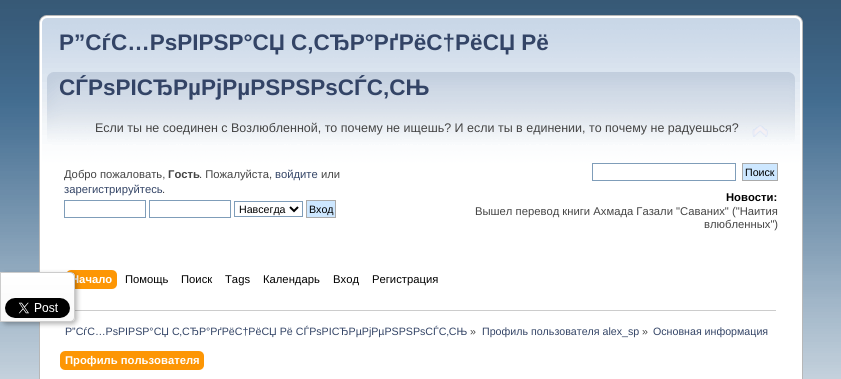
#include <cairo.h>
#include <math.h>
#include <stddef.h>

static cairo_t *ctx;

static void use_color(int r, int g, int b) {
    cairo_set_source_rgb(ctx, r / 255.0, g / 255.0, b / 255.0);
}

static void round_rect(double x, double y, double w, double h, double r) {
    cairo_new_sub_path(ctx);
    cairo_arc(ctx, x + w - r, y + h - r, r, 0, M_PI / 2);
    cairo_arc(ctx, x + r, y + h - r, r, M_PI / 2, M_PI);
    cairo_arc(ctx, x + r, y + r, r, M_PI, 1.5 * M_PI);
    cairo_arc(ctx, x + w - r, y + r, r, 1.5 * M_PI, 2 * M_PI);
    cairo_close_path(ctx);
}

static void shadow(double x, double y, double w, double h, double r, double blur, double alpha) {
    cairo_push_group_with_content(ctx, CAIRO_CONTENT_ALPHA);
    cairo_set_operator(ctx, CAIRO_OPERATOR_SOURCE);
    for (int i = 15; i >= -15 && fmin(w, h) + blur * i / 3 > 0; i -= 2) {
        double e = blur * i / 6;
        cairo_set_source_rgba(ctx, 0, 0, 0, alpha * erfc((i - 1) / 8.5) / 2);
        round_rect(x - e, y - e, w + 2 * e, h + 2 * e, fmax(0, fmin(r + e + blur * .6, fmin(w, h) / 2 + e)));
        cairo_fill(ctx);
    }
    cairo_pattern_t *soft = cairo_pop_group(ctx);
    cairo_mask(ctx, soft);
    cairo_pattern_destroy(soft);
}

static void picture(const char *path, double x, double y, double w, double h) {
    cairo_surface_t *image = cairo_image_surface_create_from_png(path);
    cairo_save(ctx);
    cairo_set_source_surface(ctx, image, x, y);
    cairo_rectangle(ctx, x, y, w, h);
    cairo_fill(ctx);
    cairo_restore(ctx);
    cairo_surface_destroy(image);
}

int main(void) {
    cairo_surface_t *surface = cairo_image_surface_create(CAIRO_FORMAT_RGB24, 841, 379);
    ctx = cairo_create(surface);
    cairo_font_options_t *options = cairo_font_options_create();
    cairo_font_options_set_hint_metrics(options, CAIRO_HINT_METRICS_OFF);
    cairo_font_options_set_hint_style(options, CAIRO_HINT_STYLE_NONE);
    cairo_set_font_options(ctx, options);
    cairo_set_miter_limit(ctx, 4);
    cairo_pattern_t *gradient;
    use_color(255, 255, 255);
    cairo_paint(ctx);
    picture("img1.png", 0, 0, 841, 379);
    picture("img2.png", 39, 15, 750, 289);
    picture("img3.png", 789, 15, 14, 289);
    cairo_select_font_face(ctx, "Liberation Sans", CAIRO_FONT_SLANT_NORMAL, CAIRO_FONT_WEIGHT_BOLD);
    cairo_set_font_size(ctx, 22.5);
    use_color(51, 68, 102);
    cairo_move_to(ctx, 59, 50);
    cairo_show_text(ctx, "Р”СѓС…РѕРІРЅР°СЏ С‚СЂР°РґРёС†РёСЏ Рё");
    cairo_move_to(ctx, 59, 95);
    cairo_show_text(ctx, "СЃРѕРІСЂРµРјРµРЅРЅРѕСЃС‚СЊ");
    cairo_select_font_face(ctx, "Liberation Sans", CAIRO_FONT_SLANT_NORMAL, CAIRO_FONT_WEIGHT_NORMAL);
    cairo_set_font_size(ctx, 12.48);
    use_color(68, 68, 68);
    cairo_move_to(ctx, 95, 132);
    cairo_show_text(ctx, "Если ты не соединен с Возлюбленной, то почему не ищешь? И если ты в единении, то почему не радуешься?");
    picture("img4.png", 752, 125, 16, 12);
    cairo_save(ctx);
    cairo_rectangle(ctx, 64, 163, 357, 63);
    cairo_clip(ctx);
    cairo_set_font_size(ctx, 11.25);
    cairo_move_to(ctx, 64, 178);
    cairo_show_text(ctx, "Добро пожаловать,");
    cairo_restore(ctx);
    cairo_select_font_face(ctx, "Liberation Sans", CAIRO_FONT_SLANT_NORMAL, CAIRO_FONT_WEIGHT_BOLD);
    cairo_set_font_size(ctx, 11.25);
    cairo_move_to(ctx, 168, 178);
    cairo_show_text(ctx, "Гость");
    cairo_select_font_face(ctx, "Liberation Sans", CAIRO_FONT_SLANT_NORMAL, CAIRO_FONT_WEIGHT_NORMAL);
    cairo_move_to(ctx, 199, 178);
    cairo_show_text(ctx, ". Пожалуйста,");
    use_color(51, 68, 102);
    cairo_move_to(ctx, 275, 178);
    cairo_show_text(ctx, "войдите");
    use_color(68, 68, 68);
    cairo_move_to(ctx, 321, 178);
    cairo_show_text(ctx, "или");
    use_color(51, 68, 102);
    cairo_move_to(ctx, 64, 193);
    cairo_show_text(ctx, "зарегистрируйтесь");
    use_color(68, 68, 68);
    cairo_move_to(ctx, 162, 193);
    cairo_show_text(ctx, ".");
    cairo_rectangle(ctx, 64.5, 200.5, 81, 17);
    use_color(127, 157, 185);
    cairo_set_line_width(ctx, 1);
    cairo_stroke(ctx);
    cairo_rectangle(ctx, 149.5, 200.5, 81, 17);
    cairo_stroke(ctx);
    cairo_rectangle(ctx, 234.5, 201.5, 68, 15);
    cairo_stroke(ctx);
    cairo_new_path(ctx);
    cairo_move_to(ctx, 290, 207);
    cairo_line_to(ctx, 294, 211);
    cairo_line_to(ctx, 298, 207);
    use_color(0, 0, 0);
    cairo_set_line_width(ctx, 2);
    cairo_stroke(ctx);
    cairo_set_font_size(ctx, 10.65);
    cairo_move_to(ctx, 239, 213);
    cairo_show_text(ctx, "Навсегда");
    use_color(205, 231, 255);
    cairo_rectangle(ctx, 306.5, 200.5, 29, 17);
    cairo_fill_preserve(ctx);
    use_color(170, 170, 170);
    cairo_set_line_width(ctx, 1);
    cairo_stroke(ctx);
    use_color(0, 0, 0);
    cairo_move_to(ctx, 309, 213);
    cairo_show_text(ctx, "Вход");
    cairo_rectangle(ctx, 592.5, 163.5, 143, 17);
    use_color(127, 157, 185);
    cairo_stroke(ctx);
    use_color(205, 231, 255);
    cairo_rectangle(ctx, 742.5, 163.5, 35, 17);
    cairo_fill_preserve(ctx);
    use_color(170, 170, 170);
    cairo_stroke(ctx);
    use_color(0, 0, 0);
    cairo_move_to(ctx, 745, 176);
    cairo_show_text(ctx, "Поиск");
    cairo_select_font_face(ctx, "Liberation Sans", CAIRO_FONT_SLANT_NORMAL, CAIRO_FONT_WEIGHT_BOLD);
    cairo_set_font_size(ctx, 11.25);
    cairo_move_to(ctx, 726, 201);
    cairo_show_text(ctx, "Новости:");
    cairo_select_font_face(ctx, "Liberation Sans", CAIRO_FONT_SLANT_NORMAL, CAIRO_FONT_WEIGHT_NORMAL);
    use_color(68, 68, 68);
    cairo_move_to(ctx, 475, 215);
    cairo_show_text(ctx, "Вышел перевод книги Ахмада Газали \"Саваних\" (\"Наития");
    cairo_move_to(ctx, 704, 228);
    cairo_show_text(ctx, "влюбленных\")");
    picture("img5.png", 71, 270, 46, 19);
    picture("img6.png", 67, 270, 4, 3);
    cairo_select_font_face(ctx, "Liberation Sans", CAIRO_FONT_SLANT_NORMAL, CAIRO_FONT_WEIGHT_BOLD);
    use_color(255, 255, 255);
    cairo_move_to(ctx, 71, 283);
    cairo_show_text(ctx, "Начало");
    cairo_select_font_face(ctx, "Liberation Sans", CAIRO_FONT_SLANT_NORMAL, CAIRO_FONT_WEIGHT_NORMAL);
    use_color(0, 0, 0);
    cairo_move_to(ctx, 125, 283);
    cairo_show_text(ctx, "Помощь");
    cairo_move_to(ctx, 181, 283);
    cairo_show_text(ctx, "Поиск");
    cairo_move_to(ctx, 225, 283);
    cairo_show_text(ctx, "Tags");
    cairo_move_to(ctx, 263, 283);
    cairo_show_text(ctx, "Календарь");
    cairo_move_to(ctx, 333, 283);
    cairo_show_text(ctx, "Вход");
    cairo_move_to(ctx, 372, 283);
    cairo_show_text(ctx, "Регистрация");
    use_color(255, 255, 255);
    cairo_rectangle(ctx, 40, 304, 762, 75);
    cairo_fill(ctx);
    use_color(183, 183, 183);
    cairo_rectangle(ctx, 39, 322, 1, 57);
    cairo_fill(ctx);
    cairo_rectangle(ctx, 802, 304, 1, 75);
    cairo_fill(ctx);
    use_color(204, 204, 204);
    cairo_rectangle(ctx, 75, 310, 701, 1);
    cairo_fill(ctx);
    use_color(0, 0, 0);
    shadow(2, 274, 75, 50, 5, 2.5, 0.3);
    cairo_save(ctx);
    cairo_new_path(ctx);
    cairo_move_to(ctx, 0, 272);
    cairo_line_to(ctx, 70, 272);
    cairo_curve_to(ctx, 73, 272, 75, 274, 75, 277);
    cairo_line_to(ctx, 75, 317);
    cairo_curve_to(ctx, 75, 320, 73, 322, 70, 322);
    cairo_line_to(ctx, 0, 322);
    cairo_close_path(ctx);
    cairo_clip(ctx);
    gradient = cairo_pattern_create_linear(1, 273, 1, 321);
    cairo_pattern_add_color_stop_rgba(gradient, 0, 1, 1, 1, 1);
    cairo_pattern_add_color_stop_rgba(gradient, 1, 0.976, 0.976, 0.976, 1);
    cairo_set_source(ctx, gradient);
    cairo_pattern_destroy(gradient);
    cairo_rectangle(ctx, 1, 273, 74, 48);
    cairo_fill(ctx);
    cairo_restore(ctx);
    cairo_new_path(ctx);
    cairo_move_to(ctx, 0.5, 272.5);
    cairo_line_to(ctx, 70, 272.5);
    cairo_curve_to(ctx, 72.5, 272.5, 74.5, 274.5, 74.5, 277);
    cairo_line_to(ctx, 74.5, 317);
    cairo_curve_to(ctx, 74.5, 319.5, 72.5, 321.5, 70, 321.5);
    cairo_line_to(ctx, 0.5, 321.5);
    cairo_close_path(ctx);
    use_color(204, 204, 204);
    cairo_stroke(ctx);
    picture("img7.png", 5, 298, 65, 20);
    cairo_set_font_size(ctx, 10.65);
    use_color(51, 68, 102);
    cairo_move_to(ctx, 65, 335);
    cairo_show_text(ctx, "Р”СѓС…РѕРІРЅР°СЏ С‚СЂР°РґРёС†РёСЏ Рё СЃРѕРІСЂРµРјРµРЅРЅРѕСЃС‚СЊ");
    use_color(68, 68, 68);
    cairo_move_to(ctx, 470, 335);
    cairo_show_text(ctx, "»");
    use_color(51, 68, 102);
    cairo_move_to(ctx, 482, 335);
    cairo_show_text(ctx, "Профиль пользователя alex_sp");
    use_color(68, 68, 68);
    cairo_move_to(ctx, 642, 335);
    cairo_show_text(ctx, "»");
    use_color(51, 68, 102);
    cairo_move_to(ctx, 653, 335);
    cairo_show_text(ctx, "Основная информация");
    picture("img8.png", 65, 351, 139, 19);
    picture("img9.png", 60, 351, 5, 19);
    cairo_select_font_face(ctx, "Liberation Sans", CAIRO_FONT_SLANT_NORMAL, CAIRO_FONT_WEIGHT_BOLD);
    cairo_set_font_size(ctx, 11.25);
    use_color(255, 255, 255);
    cairo_move_to(ctx, 65, 364);
    cairo_show_text(ctx, "Профиль пользователя");
    cairo_surface_write_to_png(surface, "result.png");
    cairo_font_options_destroy(options);
    cairo_destroy(ctx);
    cairo_surface_destroy(surface);
    return 0;
}
